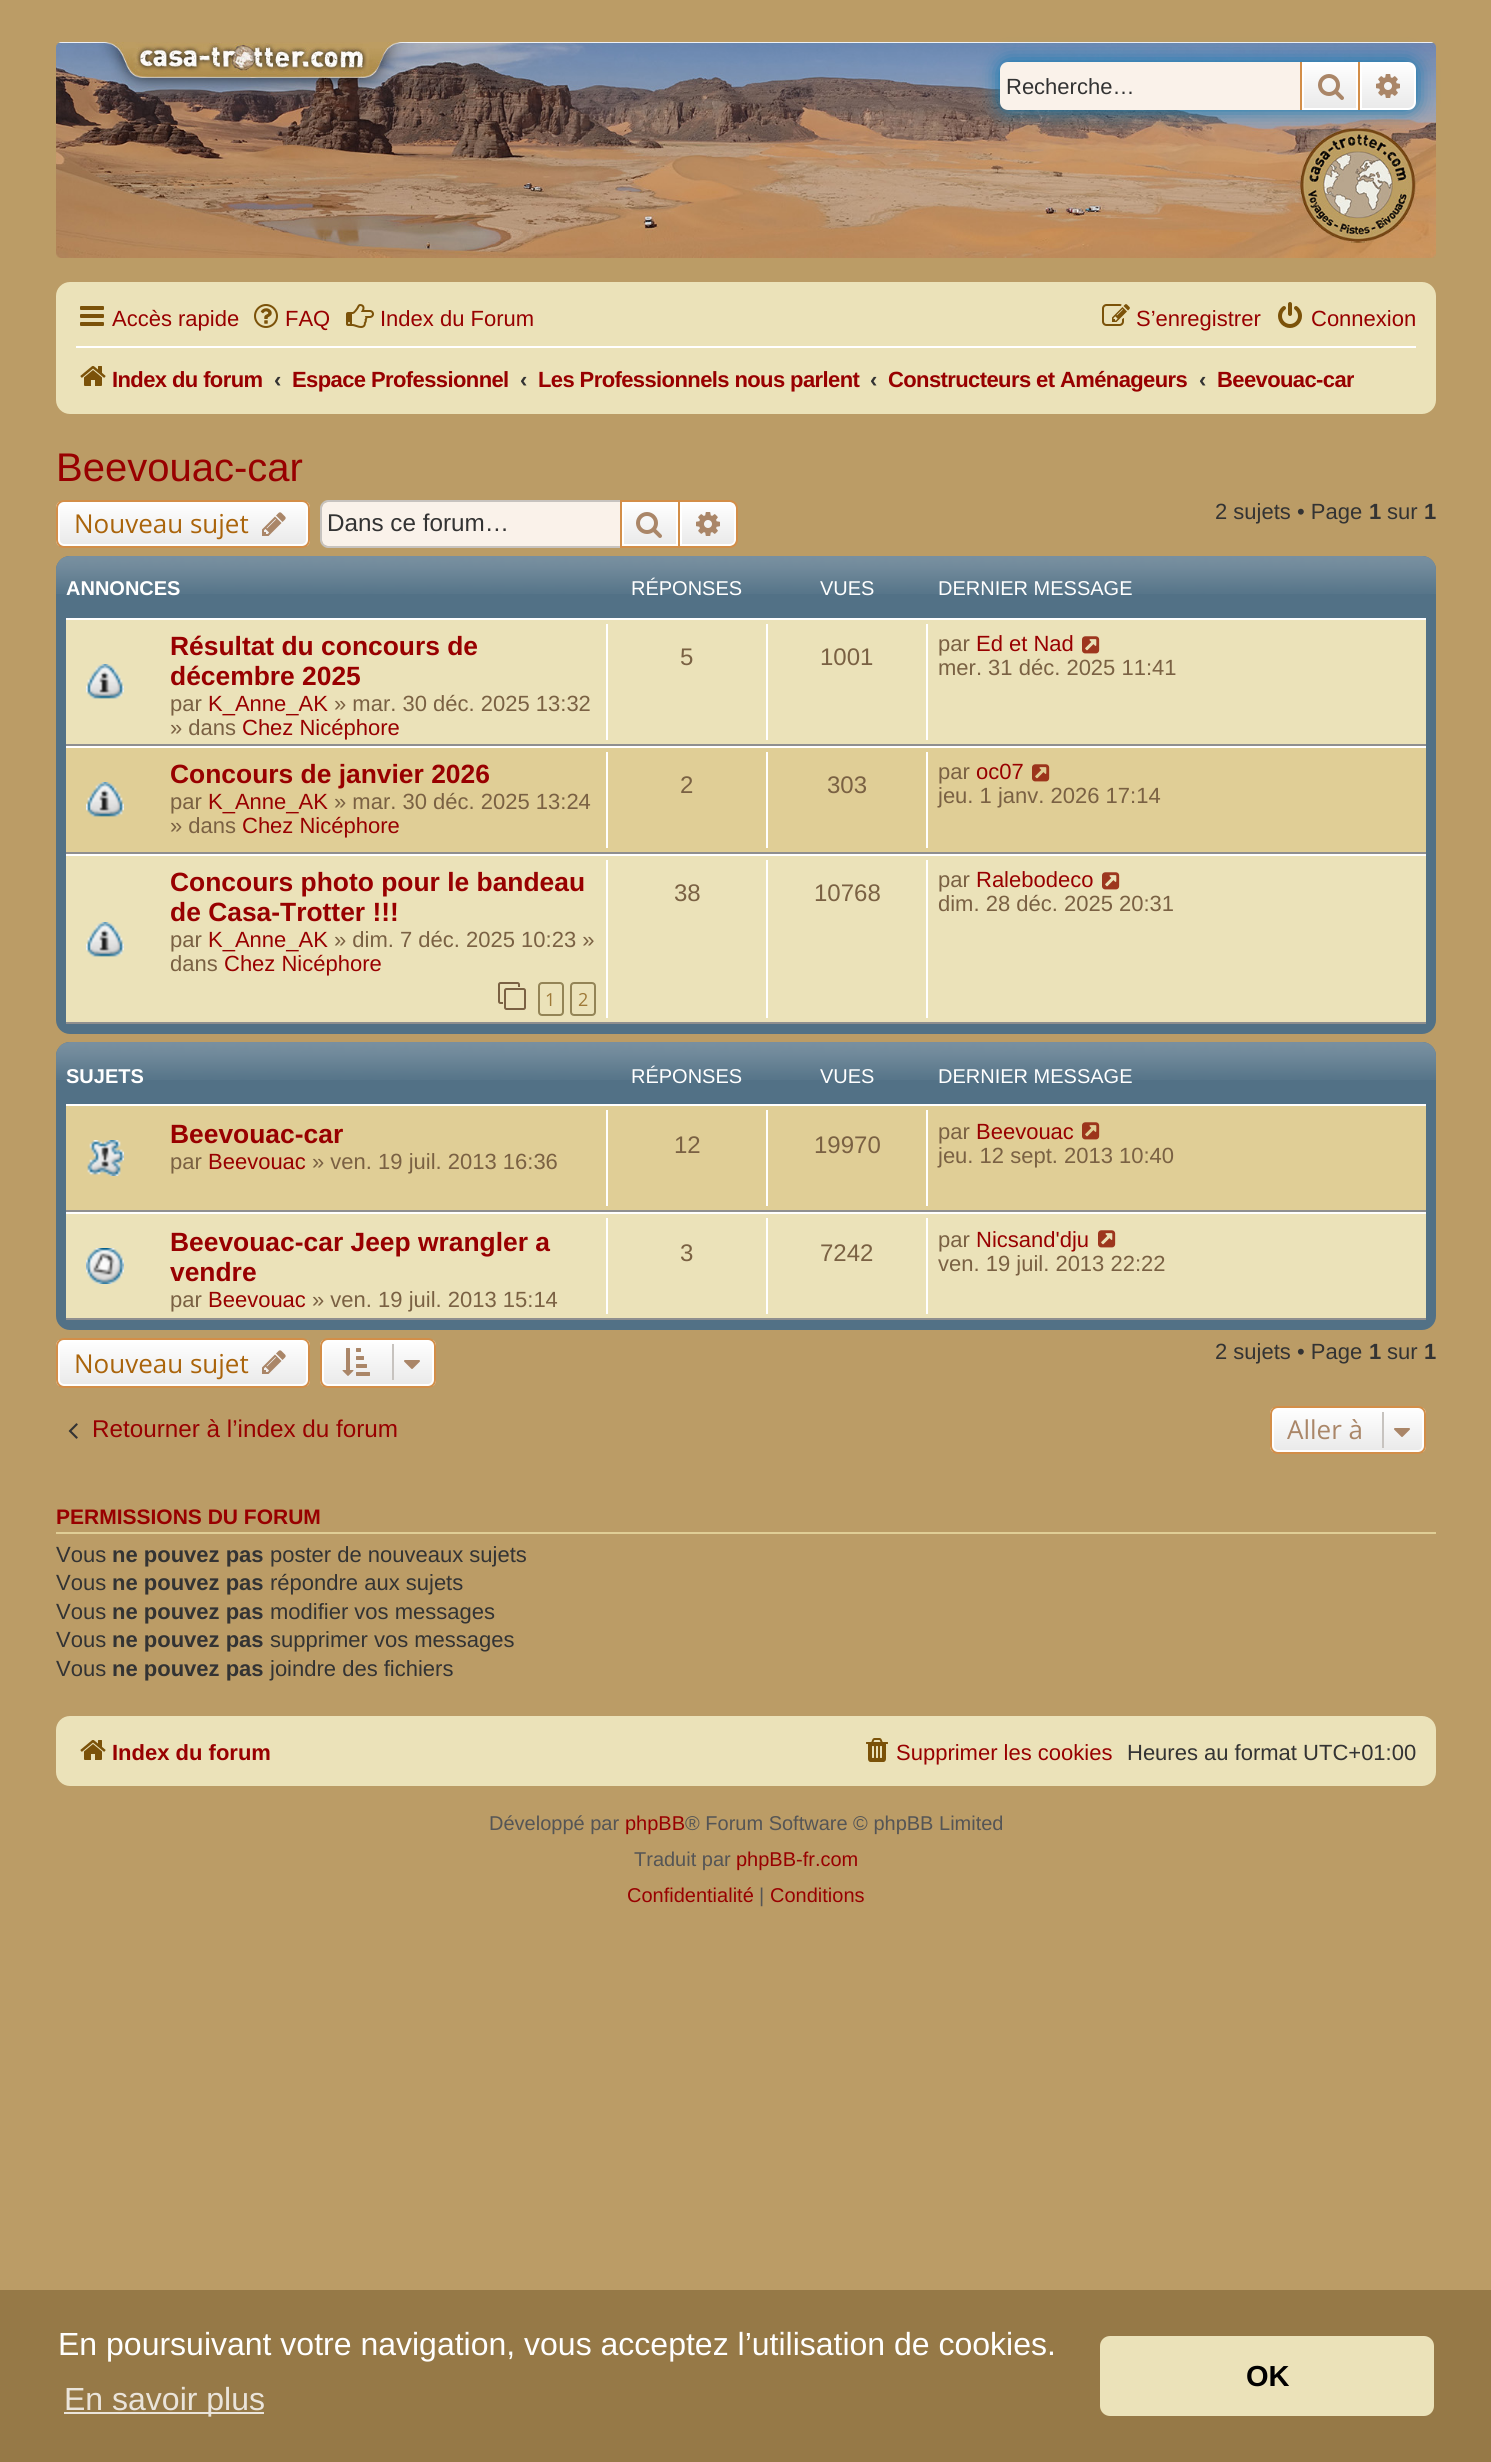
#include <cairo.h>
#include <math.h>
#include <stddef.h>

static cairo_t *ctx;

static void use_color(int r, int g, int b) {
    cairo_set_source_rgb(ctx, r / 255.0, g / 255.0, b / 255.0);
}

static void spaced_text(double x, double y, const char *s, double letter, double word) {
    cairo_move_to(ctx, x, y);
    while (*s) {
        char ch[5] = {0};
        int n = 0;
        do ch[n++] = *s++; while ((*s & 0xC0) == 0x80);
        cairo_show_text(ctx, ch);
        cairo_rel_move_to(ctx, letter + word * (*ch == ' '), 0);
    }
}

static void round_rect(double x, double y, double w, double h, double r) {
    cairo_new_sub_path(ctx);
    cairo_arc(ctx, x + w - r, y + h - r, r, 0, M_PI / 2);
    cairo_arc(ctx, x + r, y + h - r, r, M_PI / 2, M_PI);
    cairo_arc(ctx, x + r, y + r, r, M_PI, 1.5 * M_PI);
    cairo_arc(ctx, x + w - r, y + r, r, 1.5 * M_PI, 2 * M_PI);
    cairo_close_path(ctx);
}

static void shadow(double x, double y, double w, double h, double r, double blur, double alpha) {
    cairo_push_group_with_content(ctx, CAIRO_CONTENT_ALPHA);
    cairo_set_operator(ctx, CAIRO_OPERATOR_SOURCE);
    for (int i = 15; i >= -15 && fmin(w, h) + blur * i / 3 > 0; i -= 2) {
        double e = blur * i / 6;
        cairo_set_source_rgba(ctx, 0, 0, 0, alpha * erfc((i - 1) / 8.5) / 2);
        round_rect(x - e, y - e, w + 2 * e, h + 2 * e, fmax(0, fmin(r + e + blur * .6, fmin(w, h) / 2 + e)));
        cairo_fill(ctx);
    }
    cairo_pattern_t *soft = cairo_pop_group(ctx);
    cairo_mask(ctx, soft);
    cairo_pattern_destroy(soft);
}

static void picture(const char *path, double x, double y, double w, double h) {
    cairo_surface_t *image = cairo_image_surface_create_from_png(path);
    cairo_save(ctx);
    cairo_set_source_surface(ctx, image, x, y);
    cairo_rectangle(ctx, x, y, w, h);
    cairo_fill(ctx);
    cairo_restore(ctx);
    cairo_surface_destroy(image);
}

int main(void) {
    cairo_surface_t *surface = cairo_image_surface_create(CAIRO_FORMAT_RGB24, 1491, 2462);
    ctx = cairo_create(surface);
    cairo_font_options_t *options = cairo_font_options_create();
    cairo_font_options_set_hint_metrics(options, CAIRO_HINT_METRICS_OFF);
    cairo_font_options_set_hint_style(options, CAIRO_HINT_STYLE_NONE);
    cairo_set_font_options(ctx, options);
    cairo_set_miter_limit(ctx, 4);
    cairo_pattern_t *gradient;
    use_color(187, 156, 102);
    cairo_paint(ctx);
    picture("img1.png", 56, 42, 1380, 216);
    use_color(0, 117, 176);
    shadow(1000, 62, 416, 48, 8, 10, 1);
    use_color(250, 242, 234);
    cairo_new_path(ctx);
    cairo_move_to(ctx, 1008, 62);
    cairo_line_to(ctx, 1300, 62);
    cairo_line_to(ctx, 1300, 110);
    cairo_line_to(ctx, 1008, 110);
    cairo_curve_to(ctx, 1003.5, 110, 1000, 106.5, 1000, 102);
    cairo_line_to(ctx, 1000, 70);
    cairo_curve_to(ctx, 1000, 65.5, 1003.5, 62, 1008, 62);
    cairo_close_path(ctx);
    cairo_fill(ctx);
    cairo_select_font_face(ctx, "Liberation Sans", CAIRO_FONT_SLANT_NORMAL, CAIRO_FONT_WEIGHT_NORMAL);
    cairo_set_font_size(ctx, 22);
    use_color(51, 51, 51);
    cairo_move_to(ctx, 1006, 94);
    cairo_show_text(ctx, "Recherche…");
    gradient = cairo_pattern_create_linear(1330, 62, 1330, 110);
    cairo_pattern_add_color_stop_rgba(gradient, 0, 1, 1, 1, 1);
    cairo_pattern_add_color_stop_rgba(gradient, 1, 0.914, 0.914, 0.914, 1);
    cairo_set_source(ctx, gradient);
    cairo_pattern_destroy(gradient);
    cairo_rectangle(ctx, 1304, 64, 52, 44);
    cairo_fill(ctx);
    cairo_rectangle(ctx, 1303, 63, 54, 46);
    use_color(255, 255, 255);
    cairo_stroke(ctx);
    use_color(211, 142, 72);
    cairo_rectangle(ctx, 1358, 62, 2, 48);
    cairo_fill(ctx);
    cairo_rectangle(ctx, 1300, 62, 2, 48);
    cairo_fill(ctx);
    picture("img2.png", 1318, 74, 26, 26);
    gradient = cairo_pattern_create_linear(1388, 62, 1388, 110);
    cairo_pattern_add_color_stop_rgba(gradient, 0, 1, 1, 1, 1);
    cairo_pattern_add_color_stop_rgba(gradient, 1, 0.914, 0.914, 0.914, 1);
    cairo_set_source(ctx, gradient);
    cairo_pattern_destroy(gradient);
    cairo_new_path(ctx);
    cairo_move_to(ctx, 1361, 63);
    cairo_line_to(ctx, 1408, 63);
    cairo_curve_to(ctx, 1412, 63, 1415, 66, 1415, 70);
    cairo_line_to(ctx, 1415, 102);
    cairo_curve_to(ctx, 1415, 106, 1412, 109, 1408, 109);
    cairo_line_to(ctx, 1361, 109);
    cairo_close_path(ctx);
    cairo_fill_preserve(ctx);
    use_color(255, 255, 255);
    cairo_stroke(ctx);
    picture("img3.png", 1376, 74, 24, 24);
    use_color(235, 226, 185);
    round_rect(56, 282, 1380, 132, 14);
    cairo_fill(ctx);
    picture("img4.png", 80, 306, 24, 20);
    use_color(152, 0, 0);
    cairo_move_to(ctx, 112, 326);
    cairo_show_text(ctx, "Accès rapide");
    picture("img5.png", 254, 304, 24, 24);
    cairo_move_to(ctx, 285, 326);
    cairo_show_text(ctx, "FAQ");
    picture("img6.png", 346, 304, 28, 24);
    cairo_move_to(ctx, 380, 326);
    cairo_show_text(ctx, "Index du Forum");
    picture("img7.png", 1102, 304, 28, 22);
    cairo_move_to(ctx, 1136, 326);
    cairo_show_text(ctx, "S’enregistrer");
    picture("img8.png", 1278, 302, 24, 26);
    cairo_move_to(ctx, 1311, 326);
    cairo_show_text(ctx, "Connexion");
    use_color(255, 255, 255);
    cairo_rectangle(ctx, 76, 346, 1340, 2);
    cairo_fill(ctx);
    picture("img9.png", 80, 366, 26, 20);
    cairo_select_font_face(ctx, "Liberation Sans", CAIRO_FONT_SLANT_NORMAL, CAIRO_FONT_WEIGHT_BOLD);
    use_color(152, 0, 0);
    spaced_text(112, 387, "Index du forum", -0.6, 0);
    use_color(51, 51, 51);
    cairo_move_to(ctx, 274, 387);
    cairo_show_text(ctx, "‹");
    use_color(152, 0, 0);
    spaced_text(292, 387, "Espace Professionnel", -0.6, 0);
    use_color(51, 51, 51);
    cairo_move_to(ctx, 520, 387);
    cairo_show_text(ctx, "‹");
    use_color(152, 0, 0);
    spaced_text(538, 387, "Les Professionnels nous parlent", -0.6, 0);
    use_color(51, 51, 51);
    cairo_move_to(ctx, 870, 387);
    cairo_show_text(ctx, "‹");
    use_color(152, 0, 0);
    spaced_text(888, 387, "Constructeurs et Aménageurs", -0.6, 0);
    use_color(51, 51, 51);
    cairo_move_to(ctx, 1199, 387);
    cairo_show_text(ctx, "‹");
    cairo_save(ctx);
    cairo_rectangle(ctx, 1218, 354, 136, 50);
    cairo_clip(ctx);
    use_color(152, 0, 0);
    spaced_text(1217, 387, "Beevouac-car", -0.6, 0);
    cairo_restore(ctx);
    cairo_select_font_face(ctx, "Liberation Sans", CAIRO_FONT_SLANT_NORMAL, CAIRO_FONT_WEIGHT_NORMAL);
    cairo_set_font_size(ctx, 40);
    use_color(152, 0, 0);
    cairo_move_to(ctx, 56, 481);
    cairo_show_text(ctx, "Beevouac-car");
    cairo_save(ctx);
    round_rect(56, 500, 254, 48, 8);
    cairo_clip(ctx);
    gradient = cairo_pattern_create_linear(183, 502, 183, 546);
    cairo_pattern_add_color_stop_rgba(gradient, 0, 1, 1, 1, 1);
    cairo_pattern_add_color_stop_rgba(gradient, 1, 0.914, 0.914, 0.914, 1);
    cairo_set_source(ctx, gradient);
    cairo_pattern_destroy(gradient);
    cairo_rectangle(ctx, 56, 502, 254, 44);
    cairo_fill(ctx);
    cairo_restore(ctx);
    round_rect(59, 503, 248, 42, 5);
    use_color(255, 255, 255);
    cairo_stroke(ctx);
    round_rect(57, 501, 252, 46, 7);
    use_color(211, 142, 72);
    cairo_stroke(ctx);
    cairo_select_font_face(ctx, "Open Sans", CAIRO_FONT_SLANT_NORMAL, CAIRO_FONT_WEIGHT_NORMAL);
    cairo_set_font_size(ctx, 26);
    use_color(170, 100, 11);
    cairo_move_to(ctx, 74, 533);
    cairo_show_text(ctx, "Nouveau sujet");
    picture("img10.png", 262, 512, 24, 24);
    use_color(250, 242, 234);
    cairo_new_path(ctx);
    cairo_move_to(ctx, 328, 502);
    cairo_line_to(ctx, 620, 502);
    cairo_line_to(ctx, 620, 546);
    cairo_line_to(ctx, 328, 546);
    cairo_curve_to(ctx, 324.5, 546, 322, 543.5, 322, 540);
    cairo_line_to(ctx, 322, 508);
    cairo_curve_to(ctx, 322, 504.5, 324.5, 502, 328, 502);
    cairo_close_path(ctx);
    cairo_fill(ctx);
    use_color(199, 195, 191);
    cairo_set_fill_rule(ctx, CAIRO_FILL_RULE_EVEN_ODD);
    cairo_new_path(ctx);
    cairo_move_to(ctx, 328, 500);
    cairo_line_to(ctx, 620, 500);
    cairo_line_to(ctx, 620, 548);
    cairo_line_to(ctx, 328, 548);
    cairo_curve_to(ctx, 324, 548, 320, 544, 320, 540);
    cairo_line_to(ctx, 320, 508);
    cairo_curve_to(ctx, 320, 504, 324, 500, 328, 500);
    cairo_close_path(ctx);
    cairo_move_to(ctx, 328, 502);
    cairo_line_to(ctx, 620, 502);
    cairo_line_to(ctx, 620, 546);
    cairo_line_to(ctx, 328, 546);
    cairo_curve_to(ctx, 325, 546, 322, 543, 322, 540);
    cairo_line_to(ctx, 322, 508);
    cairo_curve_to(ctx, 322, 505, 325, 502, 328, 502);
    cairo_close_path(ctx);
    cairo_fill(ctx);
    cairo_select_font_face(ctx, "Liberation Sans", CAIRO_FONT_SLANT_NORMAL, CAIRO_FONT_WEIGHT_NORMAL);
    cairo_set_font_size(ctx, 24.25);
    use_color(51, 51, 51);
    cairo_move_to(ctx, 327, 531);
    cairo_show_text(ctx, "Dans ce forum…");
    gradient = cairo_pattern_create_linear(650, 502, 650, 546);
    cairo_pattern_add_color_stop_rgba(gradient, 0, 1, 1, 1, 1);
    cairo_pattern_add_color_stop_rgba(gradient, 1, 0.914, 0.914, 0.914, 1);
    cairo_set_source(ctx, gradient);
    cairo_pattern_destroy(gradient);
    cairo_rectangle(ctx, 624, 504, 52, 40);
    cairo_fill(ctx);
    cairo_rectangle(ctx, 623, 503, 54, 42);
    use_color(255, 255, 255);
    cairo_stroke(ctx);
    cairo_rectangle(ctx, 621, 501, 58, 46);
    use_color(211, 142, 72);
    cairo_stroke(ctx);
    picture("img11.png", 636, 512, 26, 26);
    gradient = cairo_pattern_create_linear(708, 502, 708, 546);
    cairo_pattern_add_color_stop_rgba(gradient, 0, 1, 1, 1, 1);
    cairo_pattern_add_color_stop_rgba(gradient, 1, 0.914, 0.914, 0.914, 1);
    cairo_set_source(ctx, gradient);
    cairo_pattern_destroy(gradient);
    cairo_new_path(ctx);
    cairo_move_to(ctx, 681, 503);
    cairo_line_to(ctx, 730, 503);
    cairo_curve_to(ctx, 733, 503, 735, 505, 735, 508);
    cairo_line_to(ctx, 735, 540);
    cairo_curve_to(ctx, 735, 543, 733, 545, 730, 545);
    cairo_line_to(ctx, 681, 545);
    cairo_close_path(ctx);
    cairo_fill_preserve(ctx);
    use_color(255, 255, 255);
    cairo_stroke(ctx);
    use_color(211, 142, 72);
    cairo_new_path(ctx);
    cairo_move_to(ctx, 680, 500);
    cairo_line_to(ctx, 730, 500);
    cairo_curve_to(ctx, 734, 500, 738, 504, 738, 508);
    cairo_line_to(ctx, 738, 540);
    cairo_curve_to(ctx, 738, 544, 734, 548, 730, 548);
    cairo_line_to(ctx, 680, 548);
    cairo_close_path(ctx);
    cairo_move_to(ctx, 680, 502);
    cairo_line_to(ctx, 730, 502);
    cairo_curve_to(ctx, 733, 502, 736, 505, 736, 508);
    cairo_line_to(ctx, 736, 540);
    cairo_curve_to(ctx, 736, 543, 733, 546, 730, 546);
    cairo_line_to(ctx, 680, 546);
    cairo_close_path(ctx);
    cairo_fill(ctx);
    picture("img12.png", 696, 512, 24, 24);
    cairo_set_font_size(ctx, 22);
    use_color(51, 51, 51);
    cairo_move_to(ctx, 1215, 519);
    cairo_show_text(ctx, "2 sujets • Page");
    cairo_select_font_face(ctx, "Liberation Sans", CAIRO_FONT_SLANT_NORMAL, CAIRO_FONT_WEIGHT_BOLD);
    cairo_move_to(ctx, 1369, 519);
    cairo_show_text(ctx, "1");
    cairo_select_font_face(ctx, "Liberation Sans", CAIRO_FONT_SLANT_NORMAL, CAIRO_FONT_WEIGHT_NORMAL);
    cairo_move_to(ctx, 1387, 519);
    cairo_show_text(ctx, "sur");
    cairo_select_font_face(ctx, "Liberation Sans", CAIRO_FONT_SLANT_NORMAL, CAIRO_FONT_WEIGHT_BOLD);
    cairo_move_to(ctx, 1424, 519);
    cairo_show_text(ctx, "1");
    use_color(82, 113, 134);
    round_rect(56, 556, 1380, 478, 14);
    cairo_fill(ctx);
    picture("img13.png", 56, 556, 1380, 38);
    cairo_set_font_size(ctx, 20);
    use_color(255, 255, 255);
    cairo_move_to(ctx, 66, 595);
    cairo_show_text(ctx, "ANNONCES");
    cairo_select_font_face(ctx, "Liberation Sans", CAIRO_FONT_SLANT_NORMAL, CAIRO_FONT_WEIGHT_NORMAL);
    cairo_move_to(ctx, 631, 595);
    cairo_show_text(ctx, "RÉPONSES");
    cairo_move_to(ctx, 820, 595);
    cairo_show_text(ctx, "VUES");
    cairo_move_to(ctx, 938, 595);
    cairo_show_text(ctx, "DERNIER MESSAGE");
    use_color(235, 226, 185);
    cairo_rectangle(ctx, 66, 620, 1360, 124);
    cairo_fill(ctx);
    use_color(255, 255, 255);
    cairo_rectangle(ctx, 66, 618, 1360, 2);
    cairo_fill(ctx);
    use_color(143, 143, 143);
    cairo_rectangle(ctx, 66, 744, 1360, 2);
    cairo_fill(ctx);
    picture("img14.png", 86, 664, 38, 35);
    cairo_select_font_face(ctx, "Liberation Sans", CAIRO_FONT_SLANT_NORMAL, CAIRO_FONT_WEIGHT_BOLD);
    cairo_set_font_size(ctx, 26.4);
    use_color(152, 0, 0);
    cairo_move_to(ctx, 170, 655);
    cairo_show_text(ctx, "Résultat du concours de");
    cairo_move_to(ctx, 170, 685);
    cairo_show_text(ctx, "décembre 2025");
    cairo_select_font_face(ctx, "Liberation Sans", CAIRO_FONT_SLANT_NORMAL, CAIRO_FONT_WEIGHT_NORMAL);
    cairo_set_font_size(ctx, 22);
    use_color(122, 97, 67);
    cairo_move_to(ctx, 170, 711);
    cairo_show_text(ctx, "par");
    use_color(152, 0, 0);
    cairo_move_to(ctx, 208, 711);
    cairo_show_text(ctx, "K_Anne_AK");
    use_color(122, 97, 67);
    cairo_move_to(ctx, 334, 711);
    cairo_show_text(ctx, "» mar. 30 déc. 2025 13:32");
    cairo_move_to(ctx, 170, 735);
    cairo_show_text(ctx, "» dans");
    use_color(152, 0, 0);
    cairo_move_to(ctx, 242, 735);
    cairo_show_text(ctx, "Chez Nicéphore");
    use_color(255, 255, 255);
    cairo_rectangle(ctx, 606, 624, 2, 116);
    cairo_fill(ctx);
    cairo_set_font_size(ctx, 24);
    use_color(122, 97, 67);
    cairo_move_to(ctx, 680, 665);
    cairo_show_text(ctx, "5");
    use_color(255, 255, 255);
    cairo_rectangle(ctx, 766, 624, 2, 116);
    cairo_fill(ctx);
    use_color(122, 97, 67);
    cairo_move_to(ctx, 820, 665);
    cairo_show_text(ctx, "1001");
    use_color(255, 255, 255);
    cairo_rectangle(ctx, 926, 624, 2, 116);
    cairo_fill(ctx);
    cairo_set_font_size(ctx, 22);
    use_color(122, 97, 67);
    cairo_move_to(ctx, 938, 651);
    cairo_show_text(ctx, "par");
    use_color(152, 0, 0);
    cairo_move_to(ctx, 976, 651);
    cairo_show_text(ctx, "Ed et Nad");
    picture("img15.png", 1082, 636, 18, 18);
    use_color(122, 97, 67);
    cairo_move_to(ctx, 938, 675);
    cairo_show_text(ctx, "mer. 31 déc. 2025 11:41");
    use_color(224, 206, 150);
    cairo_rectangle(ctx, 66, 748, 1360, 104);
    cairo_fill(ctx);
    use_color(255, 255, 255);
    cairo_rectangle(ctx, 66, 746, 1360, 2);
    cairo_fill(ctx);
    use_color(143, 143, 143);
    cairo_rectangle(ctx, 66, 852, 1360, 2);
    cairo_fill(ctx);
    picture("img16.png", 86, 782, 38, 35);
    cairo_select_font_face(ctx, "Liberation Sans", CAIRO_FONT_SLANT_NORMAL, CAIRO_FONT_WEIGHT_BOLD);
    cairo_set_font_size(ctx, 26.4);
    use_color(152, 0, 0);
    cairo_move_to(ctx, 170, 783);
    cairo_show_text(ctx, "Concours de janvier 2026");
    cairo_select_font_face(ctx, "Liberation Sans", CAIRO_FONT_SLANT_NORMAL, CAIRO_FONT_WEIGHT_NORMAL);
    cairo_set_font_size(ctx, 22);
    use_color(122, 97, 67);
    cairo_move_to(ctx, 170, 809);
    cairo_show_text(ctx, "par");
    use_color(152, 0, 0);
    cairo_move_to(ctx, 208, 809);
    cairo_show_text(ctx, "K_Anne_AK");
    use_color(122, 97, 67);
    cairo_move_to(ctx, 334, 809);
    cairo_show_text(ctx, "» mar. 30 déc. 2025 13:24");
    cairo_move_to(ctx, 170, 833);
    cairo_show_text(ctx, "» dans");
    use_color(152, 0, 0);
    cairo_move_to(ctx, 242, 833);
    cairo_show_text(ctx, "Chez Nicéphore");
    use_color(255, 255, 255);
    cairo_rectangle(ctx, 606, 752, 2, 96);
    cairo_fill(ctx);
    cairo_set_font_size(ctx, 24);
    use_color(122, 97, 67);
    cairo_move_to(ctx, 680, 793);
    cairo_show_text(ctx, "2");
    use_color(255, 255, 255);
    cairo_rectangle(ctx, 766, 752, 2, 96);
    cairo_fill(ctx);
    use_color(122, 97, 67);
    cairo_move_to(ctx, 827, 793);
    cairo_show_text(ctx, "303");
    use_color(255, 255, 255);
    cairo_rectangle(ctx, 926, 752, 2, 96);
    cairo_fill(ctx);
    cairo_set_font_size(ctx, 22);
    use_color(122, 97, 67);
    cairo_move_to(ctx, 938, 779);
    cairo_show_text(ctx, "par");
    use_color(152, 0, 0);
    cairo_move_to(ctx, 976, 779);
    cairo_show_text(ctx, "oc07");
    picture("img17.png", 1032, 764, 18, 18);
    use_color(122, 97, 67);
    cairo_move_to(ctx, 938, 803);
    cairo_show_text(ctx, "jeu. 1 janv. 2026 17:14");
    use_color(235, 226, 185);
    cairo_rectangle(ctx, 66, 856, 1360, 166);
    cairo_fill(ctx);
    use_color(255, 255, 255);
    cairo_rectangle(ctx, 66, 854, 1360, 2);
    cairo_fill(ctx);
    use_color(143, 143, 143);
    cairo_rectangle(ctx, 66, 1022, 1360, 2);
    cairo_fill(ctx);
    picture("img14.png", 86, 922, 38, 35);
    cairo_select_font_face(ctx, "Liberation Sans", CAIRO_FONT_SLANT_NORMAL, CAIRO_FONT_WEIGHT_BOLD);
    cairo_set_font_size(ctx, 26.4);
    use_color(152, 0, 0);
    cairo_move_to(ctx, 170, 891);
    cairo_show_text(ctx, "Concours photo pour le bandeau");
    cairo_move_to(ctx, 170, 921);
    cairo_show_text(ctx, "de Casa-Trotter !!!");
    cairo_select_font_face(ctx, "Liberation Sans", CAIRO_FONT_SLANT_NORMAL, CAIRO_FONT_WEIGHT_NORMAL);
    cairo_set_font_size(ctx, 22);
    use_color(122, 97, 67);
    cairo_move_to(ctx, 170, 947);
    cairo_show_text(ctx, "par");
    use_color(152, 0, 0);
    cairo_move_to(ctx, 208, 947);
    cairo_show_text(ctx, "K_Anne_AK");
    use_color(122, 97, 67);
    cairo_move_to(ctx, 334, 947);
    cairo_show_text(ctx, "» dim. 7 déc. 2025 10:23 »");
    cairo_move_to(ctx, 170, 971);
    cairo_show_text(ctx, "dans");
    use_color(152, 0, 0);
    cairo_move_to(ctx, 224, 971);
    cairo_show_text(ctx, "Chez Nicéphore");
    picture("img18.png", 498, 982, 28, 28);
    round_rect(539, 983, 24, 32, 3);
    use_color(147, 132, 86);
    cairo_stroke(ctx);
    cairo_select_font_face(ctx, "Open Sans", CAIRO_FONT_SLANT_NORMAL, CAIRO_FONT_WEIGHT_NORMAL);
    cairo_set_font_size(ctx, 18);
    use_color(158, 121, 56);
    cairo_move_to(ctx, 545, 1006);
    cairo_show_text(ctx, "1");
    round_rect(571, 983, 24, 32, 3);
    use_color(147, 132, 86);
    cairo_stroke(ctx);
    use_color(158, 121, 56);
    cairo_move_to(ctx, 578, 1006);
    cairo_show_text(ctx, "2");
    use_color(255, 255, 255);
    cairo_rectangle(ctx, 606, 860, 2, 158);
    cairo_fill(ctx);
    cairo_select_font_face(ctx, "Liberation Sans", CAIRO_FONT_SLANT_NORMAL, CAIRO_FONT_WEIGHT_NORMAL);
    cairo_set_font_size(ctx, 24);
    use_color(122, 97, 67);
    cairo_move_to(ctx, 674, 901);
    cairo_show_text(ctx, "38");
    use_color(255, 255, 255);
    cairo_rectangle(ctx, 766, 860, 2, 158);
    cairo_fill(ctx);
    use_color(122, 97, 67);
    cairo_move_to(ctx, 814, 901);
    cairo_show_text(ctx, "10768");
    use_color(255, 255, 255);
    cairo_rectangle(ctx, 926, 860, 2, 158);
    cairo_fill(ctx);
    cairo_set_font_size(ctx, 22);
    use_color(122, 97, 67);
    cairo_move_to(ctx, 938, 887);
    cairo_show_text(ctx, "par");
    use_color(152, 0, 0);
    cairo_move_to(ctx, 976, 887);
    cairo_show_text(ctx, "Ralebodeco");
    picture("img15.png", 1102, 872, 18, 18);
    use_color(122, 97, 67);
    cairo_move_to(ctx, 938, 911);
    cairo_show_text(ctx, "dim. 28 déc. 2025 20:31");
    use_color(82, 113, 134);
    round_rect(56, 1042, 1380, 288, 14);
    cairo_fill(ctx);
    picture("img13.png", 56, 1042, 1380, 38);
    cairo_select_font_face(ctx, "Liberation Sans", CAIRO_FONT_SLANT_NORMAL, CAIRO_FONT_WEIGHT_BOLD);
    cairo_set_font_size(ctx, 20);
    use_color(255, 255, 255);
    cairo_move_to(ctx, 66, 1083);
    cairo_show_text(ctx, "SUJETS");
    cairo_select_font_face(ctx, "Liberation Sans", CAIRO_FONT_SLANT_NORMAL, CAIRO_FONT_WEIGHT_NORMAL);
    cairo_move_to(ctx, 631, 1083);
    cairo_show_text(ctx, "RÉPONSES");
    cairo_move_to(ctx, 820, 1083);
    cairo_show_text(ctx, "VUES");
    cairo_move_to(ctx, 938, 1083);
    cairo_show_text(ctx, "DERNIER MESSAGE");
    use_color(224, 206, 150);
    cairo_rectangle(ctx, 66, 1106, 1360, 104);
    cairo_fill(ctx);
    use_color(255, 255, 255);
    cairo_rectangle(ctx, 66, 1104, 1360, 2);
    cairo_fill(ctx);
    use_color(143, 143, 143);
    cairo_rectangle(ctx, 66, 1210, 1360, 2);
    cairo_fill(ctx);
    picture("img19.png", 87, 1140, 37, 36);
    cairo_select_font_face(ctx, "Liberation Sans", CAIRO_FONT_SLANT_NORMAL, CAIRO_FONT_WEIGHT_BOLD);
    cairo_set_font_size(ctx, 26.4);
    use_color(152, 0, 0);
    cairo_move_to(ctx, 170, 1143);
    cairo_show_text(ctx, "Beevouac-car");
    cairo_select_font_face(ctx, "Liberation Sans", CAIRO_FONT_SLANT_NORMAL, CAIRO_FONT_WEIGHT_NORMAL);
    cairo_set_font_size(ctx, 22);
    use_color(122, 97, 67);
    cairo_move_to(ctx, 170, 1169);
    cairo_show_text(ctx, "par");
    use_color(152, 0, 0);
    cairo_move_to(ctx, 208, 1169);
    cairo_show_text(ctx, "Beevouac");
    use_color(122, 97, 67);
    cairo_move_to(ctx, 312, 1169);
    cairo_show_text(ctx, "» ven. 19 juil. 2013 16:36");
    use_color(255, 255, 255);
    cairo_rectangle(ctx, 606, 1110, 2, 96);
    cairo_fill(ctx);
    cairo_set_font_size(ctx, 24);
    use_color(122, 97, 67);
    cairo_move_to(ctx, 674, 1153);
    cairo_show_text(ctx, "12");
    use_color(255, 255, 255);
    cairo_rectangle(ctx, 766, 1110, 2, 96);
    cairo_fill(ctx);
    use_color(122, 97, 67);
    cairo_move_to(ctx, 814, 1153);
    cairo_show_text(ctx, "19970");
    use_color(255, 255, 255);
    cairo_rectangle(ctx, 926, 1110, 2, 96);
    cairo_fill(ctx);
    cairo_set_font_size(ctx, 22);
    use_color(122, 97, 67);
    cairo_move_to(ctx, 938, 1139);
    cairo_show_text(ctx, "par");
    use_color(152, 0, 0);
    cairo_move_to(ctx, 976, 1139);
    cairo_show_text(ctx, "Beevouac");
    picture("img17.png", 1082, 1122, 18, 18);
    use_color(122, 97, 67);
    cairo_move_to(ctx, 938, 1163);
    cairo_show_text(ctx, "jeu. 12 sept. 2013 10:40");
    use_color(235, 226, 185);
    cairo_rectangle(ctx, 66, 1214, 1360, 104);
    cairo_fill(ctx);
    use_color(255, 255, 255);
    cairo_rectangle(ctx, 66, 1212, 1360, 2);
    cairo_fill(ctx);
    use_color(143, 143, 143);
    cairo_rectangle(ctx, 66, 1318, 1360, 2);
    cairo_fill(ctx);
    picture("img20.png", 86, 1248, 38, 36);
    cairo_select_font_face(ctx, "Liberation Sans", CAIRO_FONT_SLANT_NORMAL, CAIRO_FONT_WEIGHT_BOLD);
    cairo_set_font_size(ctx, 26.4);
    use_color(152, 0, 0);
    cairo_move_to(ctx, 170, 1251);
    cairo_show_text(ctx, "Beevouac-car Jeep wrangler a");
    cairo_move_to(ctx, 170, 1281);
    cairo_show_text(ctx, "vendre");
    cairo_select_font_face(ctx, "Liberation Sans", CAIRO_FONT_SLANT_NORMAL, CAIRO_FONT_WEIGHT_NORMAL);
    cairo_set_font_size(ctx, 22);
    use_color(122, 97, 67);
    cairo_move_to(ctx, 170, 1307);
    cairo_show_text(ctx, "par");
    use_color(152, 0, 0);
    cairo_move_to(ctx, 208, 1307);
    cairo_show_text(ctx, "Beevouac");
    use_color(122, 97, 67);
    cairo_move_to(ctx, 312, 1307);
    cairo_show_text(ctx, "» ven. 19 juil. 2013 15:14");
    use_color(255, 255, 255);
    cairo_rectangle(ctx, 606, 1218, 2, 96);
    cairo_fill(ctx);
    cairo_set_font_size(ctx, 24);
    use_color(122, 97, 67);
    cairo_move_to(ctx, 680, 1261);
    cairo_show_text(ctx, "3");
    use_color(255, 255, 255);
    cairo_rectangle(ctx, 766, 1218, 2, 96);
    cairo_fill(ctx);
    use_color(122, 97, 67);
    cairo_move_to(ctx, 820, 1261);
    cairo_show_text(ctx, "7242");
    use_color(255, 255, 255);
    cairo_rectangle(ctx, 926, 1218, 2, 96);
    cairo_fill(ctx);
    cairo_set_font_size(ctx, 22);
    use_color(122, 97, 67);
    cairo_move_to(ctx, 938, 1247);
    cairo_show_text(ctx, "par");
    use_color(152, 0, 0);
    cairo_move_to(ctx, 976, 1247);
    cairo_show_text(ctx, "Nicsand'dju");
    picture("img15.png", 1098, 1230, 18, 18);
    use_color(122, 97, 67);
    cairo_move_to(ctx, 938, 1271);
    cairo_show_text(ctx, "ven. 19 juil. 2013 22:22");
    cairo_save(ctx);
    cairo_set_fill_rule(ctx, CAIRO_FILL_RULE_WINDING);
    round_rect(56, 1338, 254, 50, 8);
    cairo_clip(ctx);
    gradient = cairo_pattern_create_linear(183, 1340, 183, 1386);
    cairo_pattern_add_color_stop_rgba(gradient, 0, 1, 1, 1, 1);
    cairo_pattern_add_color_stop_rgba(gradient, 1, 0.914, 0.914, 0.914, 1);
    cairo_set_source(ctx, gradient);
    cairo_pattern_destroy(gradient);
    cairo_rectangle(ctx, 56, 1340, 254, 46);
    cairo_fill(ctx);
    cairo_restore(ctx);
    round_rect(59, 1341, 248, 44, 5);
    use_color(255, 255, 255);
    cairo_stroke(ctx);
    round_rect(57, 1339, 252, 48, 7);
    use_color(211, 142, 72);
    cairo_stroke(ctx);
    cairo_select_font_face(ctx, "Open Sans", CAIRO_FONT_SLANT_NORMAL, CAIRO_FONT_WEIGHT_NORMAL);
    cairo_set_font_size(ctx, 26);
    use_color(170, 100, 11);
    cairo_move_to(ctx, 74, 1373);
    cairo_show_text(ctx, "Nouveau sujet");
    picture("img21.png", 262, 1350, 24, 24);
    cairo_save(ctx);
    cairo_set_fill_rule(ctx, CAIRO_FILL_RULE_WINDING);
    round_rect(320, 1338, 116, 50, 8);
    cairo_clip(ctx);
    gradient = cairo_pattern_create_linear(378, 1340, 378, 1386);
    cairo_pattern_add_color_stop_rgba(gradient, 0, 1, 1, 1, 1);
    cairo_pattern_add_color_stop_rgba(gradient, 1, 0.914, 0.914, 0.914, 1);
    cairo_set_source(ctx, gradient);
    cairo_pattern_destroy(gradient);
    cairo_rectangle(ctx, 320, 1340, 116, 46);
    cairo_fill(ctx);
    cairo_restore(ctx);
    round_rect(323, 1341, 110, 44, 5);
    use_color(255, 255, 255);
    cairo_stroke(ctx);
    round_rect(321, 1339, 114, 48, 7);
    use_color(211, 142, 72);
    cairo_stroke(ctx);
    picture("img22.png", 342, 1348, 28, 28);
    use_color(199, 195, 191);
    cairo_rectangle(ctx, 392, 1344, 2, 36);
    cairo_fill(ctx);
    picture("img23.png", 404, 1360, 16, 9);
    cairo_select_font_face(ctx, "Liberation Sans", CAIRO_FONT_SLANT_NORMAL, CAIRO_FONT_WEIGHT_NORMAL);
    cairo_set_font_size(ctx, 22);
    use_color(51, 51, 51);
    cairo_move_to(ctx, 1215, 1359);
    cairo_show_text(ctx, "2 sujets • Page");
    cairo_select_font_face(ctx, "Liberation Sans", CAIRO_FONT_SLANT_NORMAL, CAIRO_FONT_WEIGHT_BOLD);
    cairo_move_to(ctx, 1369, 1359);
    cairo_show_text(ctx, "1");
    cairo_select_font_face(ctx, "Liberation Sans", CAIRO_FONT_SLANT_NORMAL, CAIRO_FONT_WEIGHT_NORMAL);
    cairo_move_to(ctx, 1387, 1359);
    cairo_show_text(ctx, "sur");
    cairo_select_font_face(ctx, "Liberation Sans", CAIRO_FONT_SLANT_NORMAL, CAIRO_FONT_WEIGHT_BOLD);
    cairo_move_to(ctx, 1424, 1359);
    cairo_show_text(ctx, "1");
    picture("img24.png", 68, 1423, 10, 16);
    cairo_select_font_face(ctx, "Liberation Sans", CAIRO_FONT_SLANT_NORMAL, CAIRO_FONT_WEIGHT_NORMAL);
    cairo_set_font_size(ctx, 24.25);
    use_color(152, 0, 0);
    cairo_move_to(ctx, 92, 1437);
    cairo_show_text(ctx, "Retourner à l’index du forum");
    cairo_save(ctx);
    cairo_set_fill_rule(ctx, CAIRO_FILL_RULE_WINDING);
    round_rect(1270, 1406, 156, 48, 8);
    cairo_clip(ctx);
    gradient = cairo_pattern_create_linear(1348, 1408, 1348, 1452);
    cairo_pattern_add_color_stop_rgba(gradient, 0, 1, 1, 1, 1);
    cairo_pattern_add_color_stop_rgba(gradient, 1, 0.914, 0.914, 0.914, 1);
    cairo_set_source(ctx, gradient);
    cairo_pattern_destroy(gradient);
    cairo_rectangle(ctx, 1270, 1408, 156, 44);
    cairo_fill(ctx);
    cairo_restore(ctx);
    round_rect(1273, 1409, 150, 42, 5);
    use_color(255, 255, 255);
    cairo_stroke(ctx);
    round_rect(1271, 1407, 154, 46, 7);
    use_color(211, 142, 72);
    cairo_stroke(ctx);
    cairo_select_font_face(ctx, "Open Sans", CAIRO_FONT_SLANT_NORMAL, CAIRO_FONT_WEIGHT_NORMAL);
    cairo_set_font_size(ctx, 26);
    use_color(170, 134, 104);
    cairo_move_to(ctx, 1287, 1439);
    cairo_show_text(ctx, "Aller à");
    use_color(199, 195, 191);
    cairo_rectangle(ctx, 1382, 1412, 2, 36);
    cairo_fill(ctx);
    picture("img25.png", 1394, 1428, 16, 9);
    use_color(224, 206, 150);
    cairo_rectangle(ctx, 56, 1532, 1380, 2);
    cairo_fill(ctx);
    cairo_select_font_face(ctx, "Liberation Sans", CAIRO_FONT_SLANT_NORMAL, CAIRO_FONT_WEIGHT_BOLD);
    cairo_set_font_size(ctx, 21);
    use_color(152, 0, 0);
    cairo_move_to(ctx, 56, 1524);
    cairo_show_text(ctx, "PERMISSIONS DU FORUM");
    cairo_select_font_face(ctx, "Liberation Sans", CAIRO_FONT_SLANT_NORMAL, CAIRO_FONT_WEIGHT_NORMAL);
    cairo_set_font_size(ctx, 22);
    use_color(51, 51, 51);
    cairo_move_to(ctx, 56, 1562);
    cairo_show_text(ctx, "Vous");
    cairo_select_font_face(ctx, "Liberation Sans", CAIRO_FONT_SLANT_NORMAL, CAIRO_FONT_WEIGHT_BOLD);
    cairo_move_to(ctx, 112, 1562);
    cairo_show_text(ctx, "ne pouvez pas");
    cairo_select_font_face(ctx, "Liberation Sans", CAIRO_FONT_SLANT_NORMAL, CAIRO_FONT_WEIGHT_NORMAL);
    cairo_move_to(ctx, 270, 1562);
    cairo_show_text(ctx, "poster de nouveaux sujets");
    cairo_move_to(ctx, 56, 1590);
    cairo_show_text(ctx, "Vous");
    cairo_select_font_face(ctx, "Liberation Sans", CAIRO_FONT_SLANT_NORMAL, CAIRO_FONT_WEIGHT_BOLD);
    cairo_move_to(ctx, 112, 1590);
    cairo_show_text(ctx, "ne pouvez pas");
    cairo_select_font_face(ctx, "Liberation Sans", CAIRO_FONT_SLANT_NORMAL, CAIRO_FONT_WEIGHT_NORMAL);
    cairo_move_to(ctx, 270, 1590);
    cairo_show_text(ctx, "répondre aux sujets");
    cairo_move_to(ctx, 56, 1619);
    cairo_show_text(ctx, "Vous");
    cairo_select_font_face(ctx, "Liberation Sans", CAIRO_FONT_SLANT_NORMAL, CAIRO_FONT_WEIGHT_BOLD);
    cairo_move_to(ctx, 112, 1619);
    cairo_show_text(ctx, "ne pouvez pas");
    cairo_select_font_face(ctx, "Liberation Sans", CAIRO_FONT_SLANT_NORMAL, CAIRO_FONT_WEIGHT_NORMAL);
    cairo_move_to(ctx, 270, 1619);
    cairo_show_text(ctx, "modifier vos messages");
    cairo_move_to(ctx, 56, 1647);
    cairo_show_text(ctx, "Vous");
    cairo_select_font_face(ctx, "Liberation Sans", CAIRO_FONT_SLANT_NORMAL, CAIRO_FONT_WEIGHT_BOLD);
    cairo_move_to(ctx, 112, 1647);
    cairo_show_text(ctx, "ne pouvez pas");
    cairo_select_font_face(ctx, "Liberation Sans", CAIRO_FONT_SLANT_NORMAL, CAIRO_FONT_WEIGHT_NORMAL);
    cairo_move_to(ctx, 270, 1647);
    cairo_show_text(ctx, "supprimer vos messages");
    cairo_move_to(ctx, 56, 1676);
    cairo_show_text(ctx, "Vous");
    cairo_select_font_face(ctx, "Liberation Sans", CAIRO_FONT_SLANT_NORMAL, CAIRO_FONT_WEIGHT_BOLD);
    cairo_move_to(ctx, 112, 1676);
    cairo_show_text(ctx, "ne pouvez pas");
    cairo_select_font_face(ctx, "Liberation Sans", CAIRO_FONT_SLANT_NORMAL, CAIRO_FONT_WEIGHT_NORMAL);
    cairo_move_to(ctx, 270, 1676);
    cairo_show_text(ctx, "joindre des fichiers");
    use_color(235, 226, 185);
    round_rect(56, 1716, 1380, 70, 14);
    cairo_fill(ctx);
    picture("img9.png", 80, 1740, 26, 20);
    cairo_select_font_face(ctx, "Liberation Sans", CAIRO_FONT_SLANT_NORMAL, CAIRO_FONT_WEIGHT_BOLD);
    use_color(152, 0, 0);
    cairo_move_to(ctx, 112, 1760);
    cairo_show_text(ctx, "Index du forum");
    picture("img26.png", 866, 1738, 22, 24);
    cairo_select_font_face(ctx, "Liberation Sans", CAIRO_FONT_SLANT_NORMAL, CAIRO_FONT_WEIGHT_NORMAL);
    cairo_move_to(ctx, 896, 1760);
    cairo_show_text(ctx, "Supprimer les cookies");
    use_color(51, 51, 51);
    cairo_move_to(ctx, 1127, 1760);
    cairo_show_text(ctx, "Heures au format UTC+01:00");
    cairo_set_font_size(ctx, 20);
    use_color(85, 85, 85);
    cairo_move_to(ctx, 489, 1830);
    cairo_show_text(ctx, "Développé par");
    use_color(152, 0, 0);
    cairo_move_to(ctx, 625, 1830);
    cairo_show_text(ctx, "phpBB");
    use_color(85, 85, 85);
    cairo_move_to(ctx, 685, 1830);
    cairo_show_text(ctx, "® Forum Software © phpBB Limited");
    cairo_move_to(ctx, 634, 1866);
    cairo_show_text(ctx, "Traduit par");
    use_color(152, 0, 0);
    cairo_move_to(ctx, 736, 1866);
    cairo_show_text(ctx, "phpBB-fr.com");
    cairo_move_to(ctx, 627, 1902);
    cairo_show_text(ctx, "Confidentialité");
    use_color(85, 85, 85);
    cairo_move_to(ctx, 759, 1902);
    cairo_show_text(ctx, "|");
    use_color(152, 0, 0);
    cairo_move_to(ctx, 770, 1902);
    cairo_show_text(ctx, "Conditions");
    use_color(150, 121, 71);
    cairo_rectangle(ctx, 0, 2290, 1491, 172);
    cairo_fill(ctx);
    cairo_set_font_size(ctx, 32);
    use_color(255, 255, 255);
    cairo_move_to(ctx, 58, 2355);
    cairo_show_text(ctx, "En poursuivant votre navigation, vous acceptez l’utilisation de cookies.");
    use_color(234, 228, 218);
    cairo_rectangle(ctx, 64, 2412, 200, 2);
    cairo_fill(ctx);
    cairo_move_to(ctx, 64, 2410);
    cairo_show_text(ctx, "En savoir plus");
    use_color(235, 226, 185);
    round_rect(1100, 2336, 334, 80, 10);
    cairo_fill(ctx);
    cairo_select_font_face(ctx, "Liberation Sans", CAIRO_FONT_SLANT_NORMAL, CAIRO_FONT_WEIGHT_BOLD);
    cairo_set_font_size(ctx, 29);
    use_color(0, 0, 0);
    cairo_move_to(ctx, 1246, 2386);
    cairo_show_text(ctx, "OK");
    cairo_surface_write_to_png(surface, "result.png");
    cairo_font_options_destroy(options);
    cairo_destroy(ctx);
    cairo_surface_destroy(surface);
    return 0;
}
